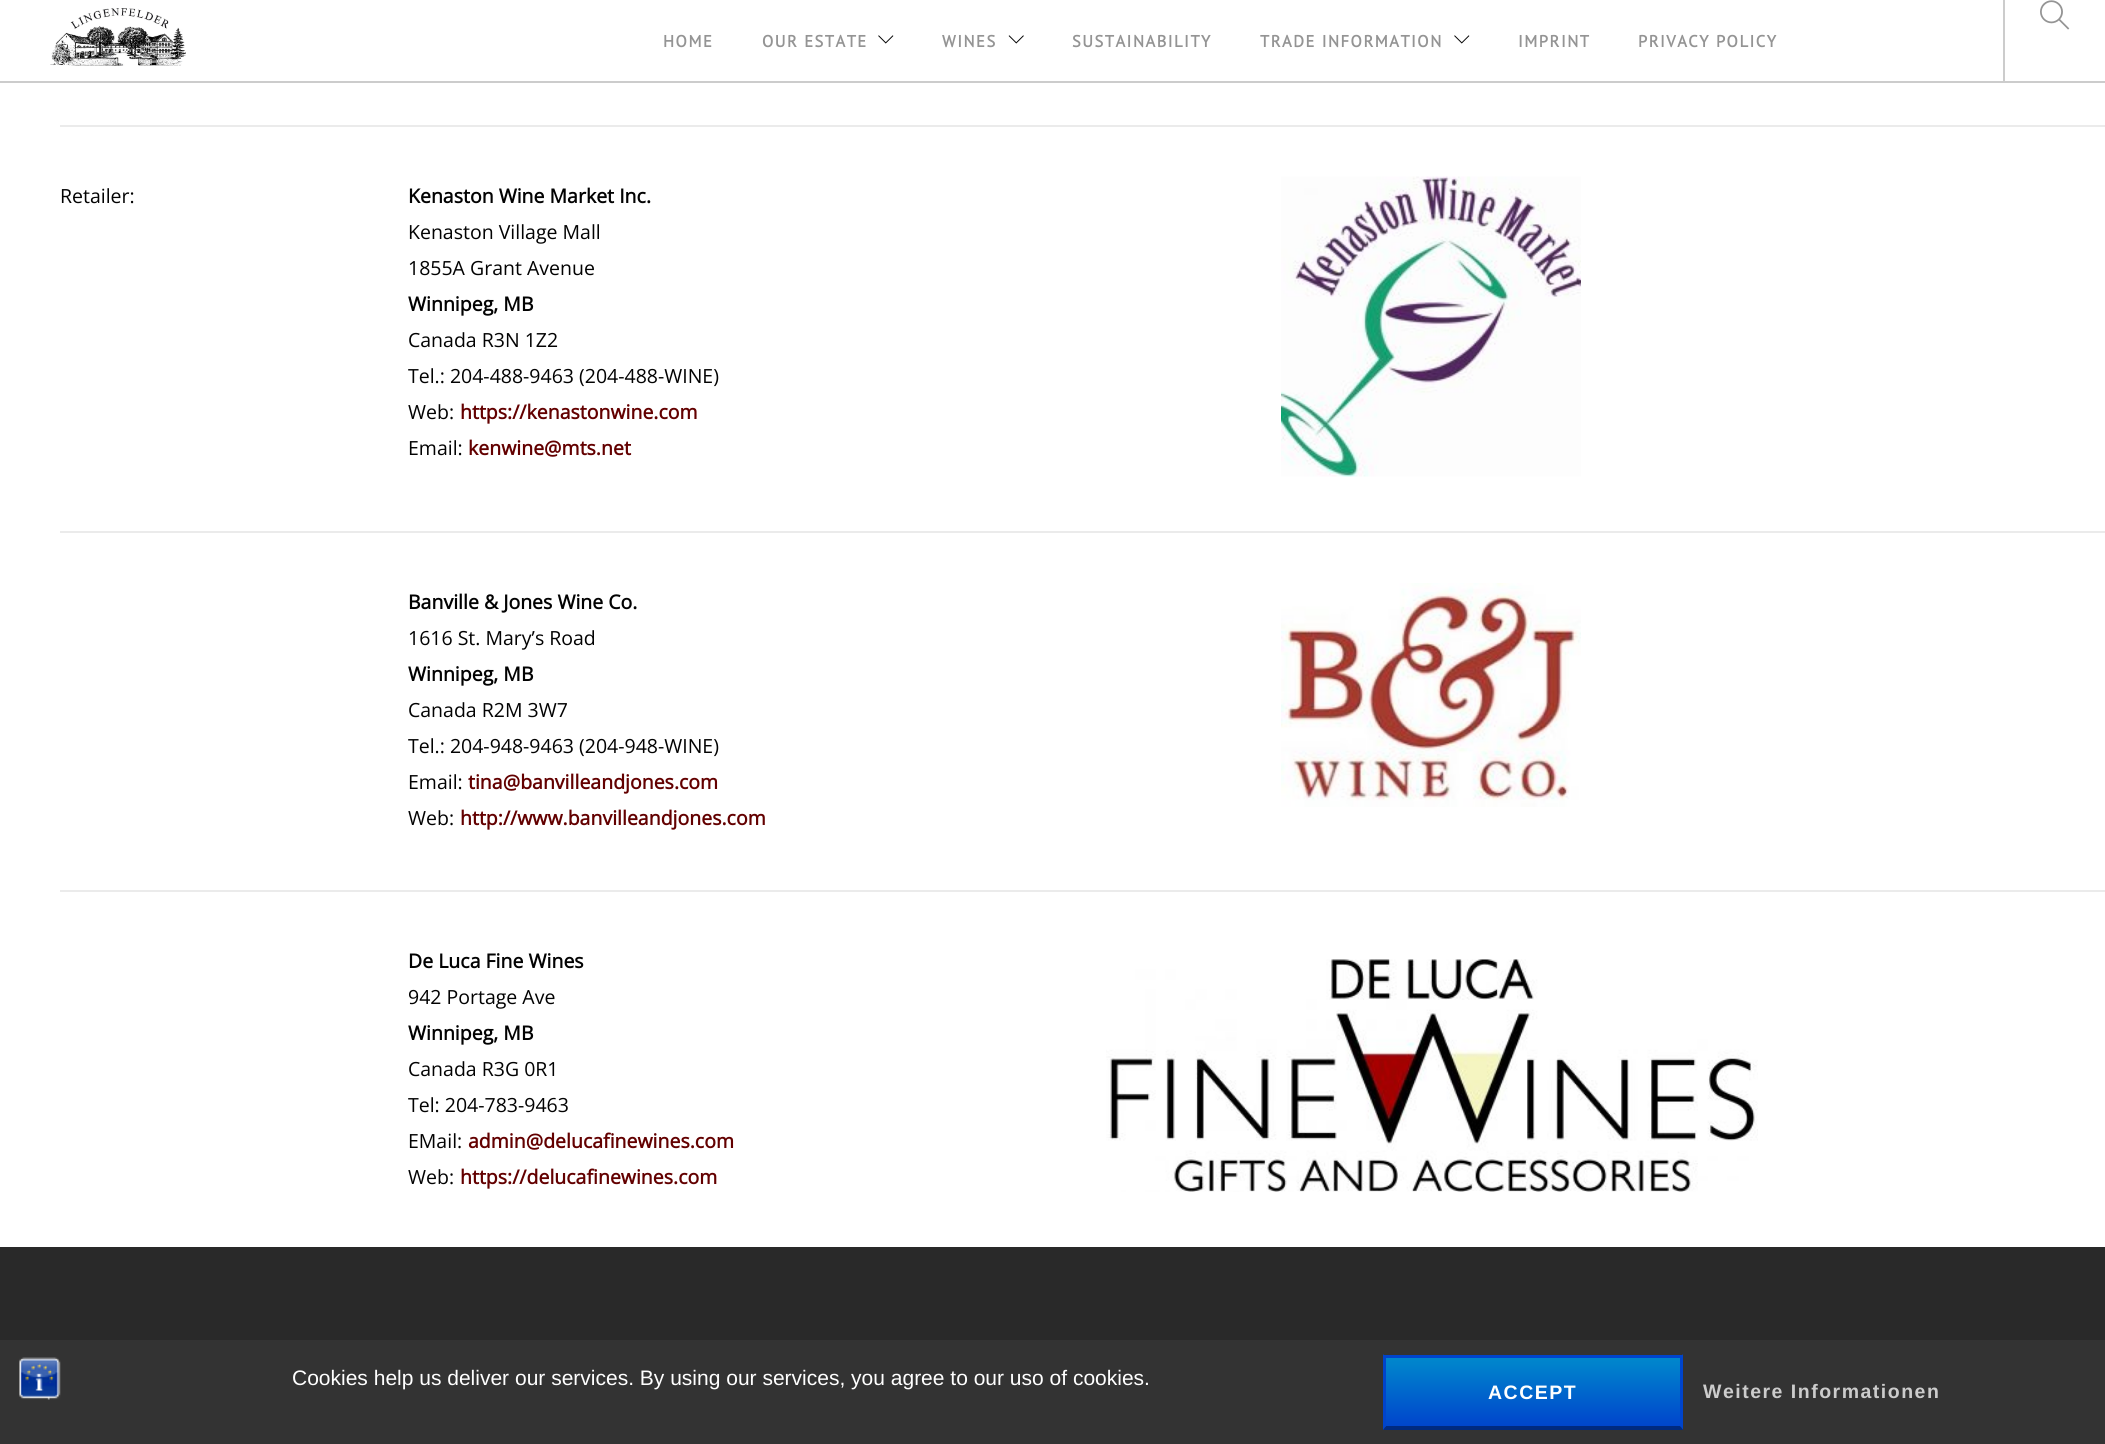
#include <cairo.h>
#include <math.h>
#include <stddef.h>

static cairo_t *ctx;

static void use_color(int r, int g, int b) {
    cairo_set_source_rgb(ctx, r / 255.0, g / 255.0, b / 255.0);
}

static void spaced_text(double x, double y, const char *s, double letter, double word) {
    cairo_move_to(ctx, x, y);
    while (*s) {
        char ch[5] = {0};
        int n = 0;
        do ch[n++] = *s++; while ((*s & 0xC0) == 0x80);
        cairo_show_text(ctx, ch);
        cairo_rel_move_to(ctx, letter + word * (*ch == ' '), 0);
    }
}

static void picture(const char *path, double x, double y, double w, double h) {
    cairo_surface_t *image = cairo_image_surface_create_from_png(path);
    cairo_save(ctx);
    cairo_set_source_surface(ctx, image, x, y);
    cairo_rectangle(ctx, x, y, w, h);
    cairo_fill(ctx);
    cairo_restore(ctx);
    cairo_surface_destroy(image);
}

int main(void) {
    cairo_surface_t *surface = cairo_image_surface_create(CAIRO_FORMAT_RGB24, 2105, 1444);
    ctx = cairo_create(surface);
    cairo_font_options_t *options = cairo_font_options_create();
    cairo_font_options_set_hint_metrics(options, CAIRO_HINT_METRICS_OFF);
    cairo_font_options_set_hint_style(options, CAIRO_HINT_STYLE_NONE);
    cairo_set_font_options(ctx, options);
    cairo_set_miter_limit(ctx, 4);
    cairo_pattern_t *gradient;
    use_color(255, 255, 255);
    cairo_paint(ctx);
    use_color(204, 204, 204);
    cairo_rectangle(ctx, 0, 81, 2105, 2);
    cairo_fill(ctx);
    picture("img1.png", 50, 8, 136, 58);
    cairo_select_font_face(ctx, "PT Sans", CAIRO_FONT_SLANT_NORMAL, CAIRO_FONT_WEIGHT_BOLD);
    cairo_set_font_size(ctx, 16.5);
    use_color(148, 148, 148);
    spaced_text(663, 47, "HOME", 1.5, 0);
    spaced_text(762, 47, "OUR ESTATE", 1.5, 0);
    picture("img2.png", 878, 35, 16, 9);
    spaced_text(942, 47, "WINES", 1.5, 0);
    picture("img3.png", 1008, 35, 16, 9);
    spaced_text(1072, 47, "SUSTAINABILITY", 1.5, 0);
    spaced_text(1260, 47, "TRADE INFORMATION", 1.5, 0);
    picture("img2.png", 1454, 35, 16, 9);
    spaced_text(1518, 47, "IMPRINT", 1.5, 0);
    spaced_text(1638, 47, "PRIVACY POLICY", 1.5, 0);
    use_color(204, 204, 204);
    cairo_rectangle(ctx, 2003, 0, 2, 83);
    cairo_fill(ctx);
    picture("img4.png", 2040, 0, 30, 30);
    use_color(235, 235, 235);
    cairo_rectangle(ctx, 60, 125, 2045, 2);
    cairo_fill(ctx);
    cairo_select_font_face(ctx, "Open Sans", CAIRO_FONT_SLANT_NORMAL, CAIRO_FONT_WEIGHT_NORMAL);
    cairo_set_font_size(ctx, 19.5);
    use_color(2, 2, 2);
    cairo_move_to(ctx, 60, 203);
    cairo_show_text(ctx, "Retailer:");
    cairo_select_font_face(ctx, "Open Sans", CAIRO_FONT_SLANT_NORMAL, CAIRO_FONT_WEIGHT_BOLD);
    cairo_move_to(ctx, 408, 203);
    cairo_show_text(ctx, "Kenaston Wine Market Inc.");
    cairo_select_font_face(ctx, "Open Sans", CAIRO_FONT_SLANT_NORMAL, CAIRO_FONT_WEIGHT_NORMAL);
    cairo_move_to(ctx, 408, 239);
    cairo_show_text(ctx, "Kenaston Village Mall");
    cairo_move_to(ctx, 408, 275);
    cairo_show_text(ctx, "1855A Grant Avenue");
    cairo_select_font_face(ctx, "Open Sans", CAIRO_FONT_SLANT_NORMAL, CAIRO_FONT_WEIGHT_BOLD);
    cairo_move_to(ctx, 408, 311);
    cairo_show_text(ctx, "Winnipeg, MB");
    cairo_select_font_face(ctx, "Open Sans", CAIRO_FONT_SLANT_NORMAL, CAIRO_FONT_WEIGHT_NORMAL);
    cairo_move_to(ctx, 408, 347);
    cairo_show_text(ctx, "Canada R3N 1Z2");
    cairo_move_to(ctx, 408, 383);
    cairo_show_text(ctx, "Tel.: 204-488-9463 (204-488-WINE)");
    cairo_move_to(ctx, 408, 419);
    cairo_show_text(ctx, "Web:");
    cairo_select_font_face(ctx, "Open Sans", CAIRO_FONT_SLANT_NORMAL, CAIRO_FONT_WEIGHT_BOLD);
    use_color(99, 0, 0);
    cairo_move_to(ctx, 460, 419);
    cairo_show_text(ctx, "https://kenastonwine.com");
    cairo_select_font_face(ctx, "Open Sans", CAIRO_FONT_SLANT_NORMAL, CAIRO_FONT_WEIGHT_NORMAL);
    use_color(2, 2, 2);
    cairo_move_to(ctx, 408, 455);
    cairo_show_text(ctx, "Email:");
    cairo_select_font_face(ctx, "Open Sans", CAIRO_FONT_SLANT_NORMAL, CAIRO_FONT_WEIGHT_BOLD);
    use_color(99, 0, 0);
    cairo_move_to(ctx, 468, 455);
    cairo_show_text(ctx, "kenwine@mts.net");
    picture("img5.png", 1281, 176, 300, 301);
    use_color(235, 235, 235);
    cairo_rectangle(ctx, 60, 531, 2045, 2);
    cairo_fill(ctx);
    use_color(2, 2, 2);
    cairo_move_to(ctx, 408, 609);
    cairo_show_text(ctx, "Banville & Jones Wine Co.");
    cairo_select_font_face(ctx, "Open Sans", CAIRO_FONT_SLANT_NORMAL, CAIRO_FONT_WEIGHT_NORMAL);
    cairo_move_to(ctx, 408, 645);
    cairo_show_text(ctx, "1616 St. Mary’s Road");
    cairo_select_font_face(ctx, "Open Sans", CAIRO_FONT_SLANT_NORMAL, CAIRO_FONT_WEIGHT_BOLD);
    cairo_move_to(ctx, 408, 681);
    cairo_show_text(ctx, "Winnipeg, MB");
    cairo_select_font_face(ctx, "Open Sans", CAIRO_FONT_SLANT_NORMAL, CAIRO_FONT_WEIGHT_NORMAL);
    cairo_move_to(ctx, 408, 717);
    cairo_show_text(ctx, "Canada R2M 3W7");
    cairo_move_to(ctx, 408, 753);
    cairo_show_text(ctx, "Tel.: 204-948-9463 (204-948-WINE)");
    cairo_move_to(ctx, 408, 789);
    cairo_show_text(ctx, "Email:");
    cairo_select_font_face(ctx, "Open Sans", CAIRO_FONT_SLANT_NORMAL, CAIRO_FONT_WEIGHT_BOLD);
    use_color(99, 0, 0);
    cairo_move_to(ctx, 468, 789);
    cairo_show_text(ctx, "tina@banvilleandjones.com");
    cairo_select_font_face(ctx, "Open Sans", CAIRO_FONT_SLANT_NORMAL, CAIRO_FONT_WEIGHT_NORMAL);
    use_color(2, 2, 2);
    cairo_move_to(ctx, 408, 825);
    cairo_show_text(ctx, "Web:");
    cairo_select_font_face(ctx, "Open Sans", CAIRO_FONT_SLANT_NORMAL, CAIRO_FONT_WEIGHT_BOLD);
    use_color(99, 0, 0);
    cairo_move_to(ctx, 460, 825);
    cairo_show_text(ctx, "http://www.banvilleandjones.com");
    picture("img6.png", 1281, 583, 300, 224);
    use_color(235, 235, 235);
    cairo_rectangle(ctx, 60, 890, 2045, 2);
    cairo_fill(ctx);
    use_color(2, 2, 2);
    cairo_move_to(ctx, 408, 968);
    cairo_show_text(ctx, "De Luca Fine Wines");
    cairo_select_font_face(ctx, "Open Sans", CAIRO_FONT_SLANT_NORMAL, CAIRO_FONT_WEIGHT_NORMAL);
    cairo_move_to(ctx, 408, 1004);
    cairo_show_text(ctx, "942 Portage Ave");
    cairo_select_font_face(ctx, "Open Sans", CAIRO_FONT_SLANT_NORMAL, CAIRO_FONT_WEIGHT_BOLD);
    cairo_move_to(ctx, 408, 1040);
    cairo_show_text(ctx, "Winnipeg, MB");
    cairo_select_font_face(ctx, "Open Sans", CAIRO_FONT_SLANT_NORMAL, CAIRO_FONT_WEIGHT_NORMAL);
    cairo_move_to(ctx, 408, 1076);
    cairo_show_text(ctx, "Canada R3G 0R1");
    cairo_move_to(ctx, 408, 1112);
    cairo_show_text(ctx, "Tel: 204-783-9463");
    cairo_move_to(ctx, 408, 1148);
    cairo_show_text(ctx, "EMail:");
    cairo_select_font_face(ctx, "Open Sans", CAIRO_FONT_SLANT_NORMAL, CAIRO_FONT_WEIGHT_BOLD);
    use_color(99, 0, 0);
    cairo_move_to(ctx, 468, 1148);
    cairo_show_text(ctx, "admin@delucafinewines.com");
    cairo_select_font_face(ctx, "Open Sans", CAIRO_FONT_SLANT_NORMAL, CAIRO_FONT_WEIGHT_NORMAL);
    use_color(2, 2, 2);
    cairo_move_to(ctx, 408, 1184);
    cairo_show_text(ctx, "Web:");
    cairo_select_font_face(ctx, "Open Sans", CAIRO_FONT_SLANT_NORMAL, CAIRO_FONT_WEIGHT_BOLD);
    use_color(99, 0, 0);
    cairo_move_to(ctx, 460, 1184);
    cairo_show_text(ctx, "https://delucafinewines.com");
    picture("img7.png", 1106, 959, 652, 233);
    use_color(41, 41, 41);
    cairo_rectangle(ctx, 0, 1247, 2105, 93);
    cairo_fill(ctx);
    use_color(51, 51, 51);
    cairo_rectangle(ctx, 0, 1340, 2105, 104);
    cairo_fill(ctx);
    picture("img8.png", 19, 1357, 42, 43);
    cairo_select_font_face(ctx, "Liberation Sans", CAIRO_FONT_SLANT_NORMAL, CAIRO_FONT_WEIGHT_NORMAL);
    cairo_set_font_size(ctx, 21);
    use_color(255, 255, 255);
    cairo_move_to(ctx, 292, 1385);
    cairo_show_text(ctx, "Cookies help us deliver our services. By using our services, you agree to our uso of cookies.");
    gradient = cairo_pattern_create_linear(1533, 1358, 1533, 1427);
    cairo_pattern_add_color_stop_rgba(gradient, 0, 0, 0.533, 0.8, 1);
    cairo_pattern_add_color_stop_rgba(gradient, 1, 0, 0.267, 0.8, 1);
    cairo_set_source(ctx, gradient);
    cairo_pattern_destroy(gradient);
    cairo_rectangle(ctx, 1385, 1358, 296, 69);
    cairo_fill(ctx);
    use_color(0, 68, 204);
    cairo_rectangle(ctx, 1383, 1355, 300, 3);
    cairo_fill(ctx);
    cairo_new_path(ctx);
    cairo_move_to(ctx, 1683, 1354);
    cairo_line_to(ctx, 1683, 1430);
    cairo_line_to(ctx, 1680, 1426);
    cairo_line_to(ctx, 1680, 1358);
    cairo_close_path(ctx);
    cairo_fill(ctx);
    use_color(0, 42, 128);
    cairo_new_path(ctx);
    cairo_move_to(ctx, 1683, 1430);
    cairo_line_to(ctx, 1383, 1430);
    cairo_line_to(ctx, 1386, 1426);
    cairo_line_to(ctx, 1680, 1426);
    cairo_close_path(ctx);
    cairo_fill(ctx);
    use_color(0, 68, 204);
    cairo_new_path(ctx);
    cairo_move_to(ctx, 1383, 1430);
    cairo_line_to(ctx, 1383, 1354);
    cairo_line_to(ctx, 1386, 1358);
    cairo_line_to(ctx, 1386, 1426);
    cairo_close_path(ctx);
    cairo_fill(ctx);
    cairo_select_font_face(ctx, "Liberation Sans", CAIRO_FONT_SLANT_NORMAL, CAIRO_FONT_WEIGHT_BOLD);
    cairo_set_font_size(ctx, 19.5);
    use_color(255, 255, 255);
    spaced_text(1488, 1399, "ACCEPT", 1.5, 0);
    use_color(204, 204, 204);
    spaced_text(1703, 1398, "Weitere Informationen", 1.5, 0);
    cairo_surface_write_to_png(surface, "result.png");
    cairo_font_options_destroy(options);
    cairo_destroy(ctx);
    cairo_surface_destroy(surface);
    return 0;
}
